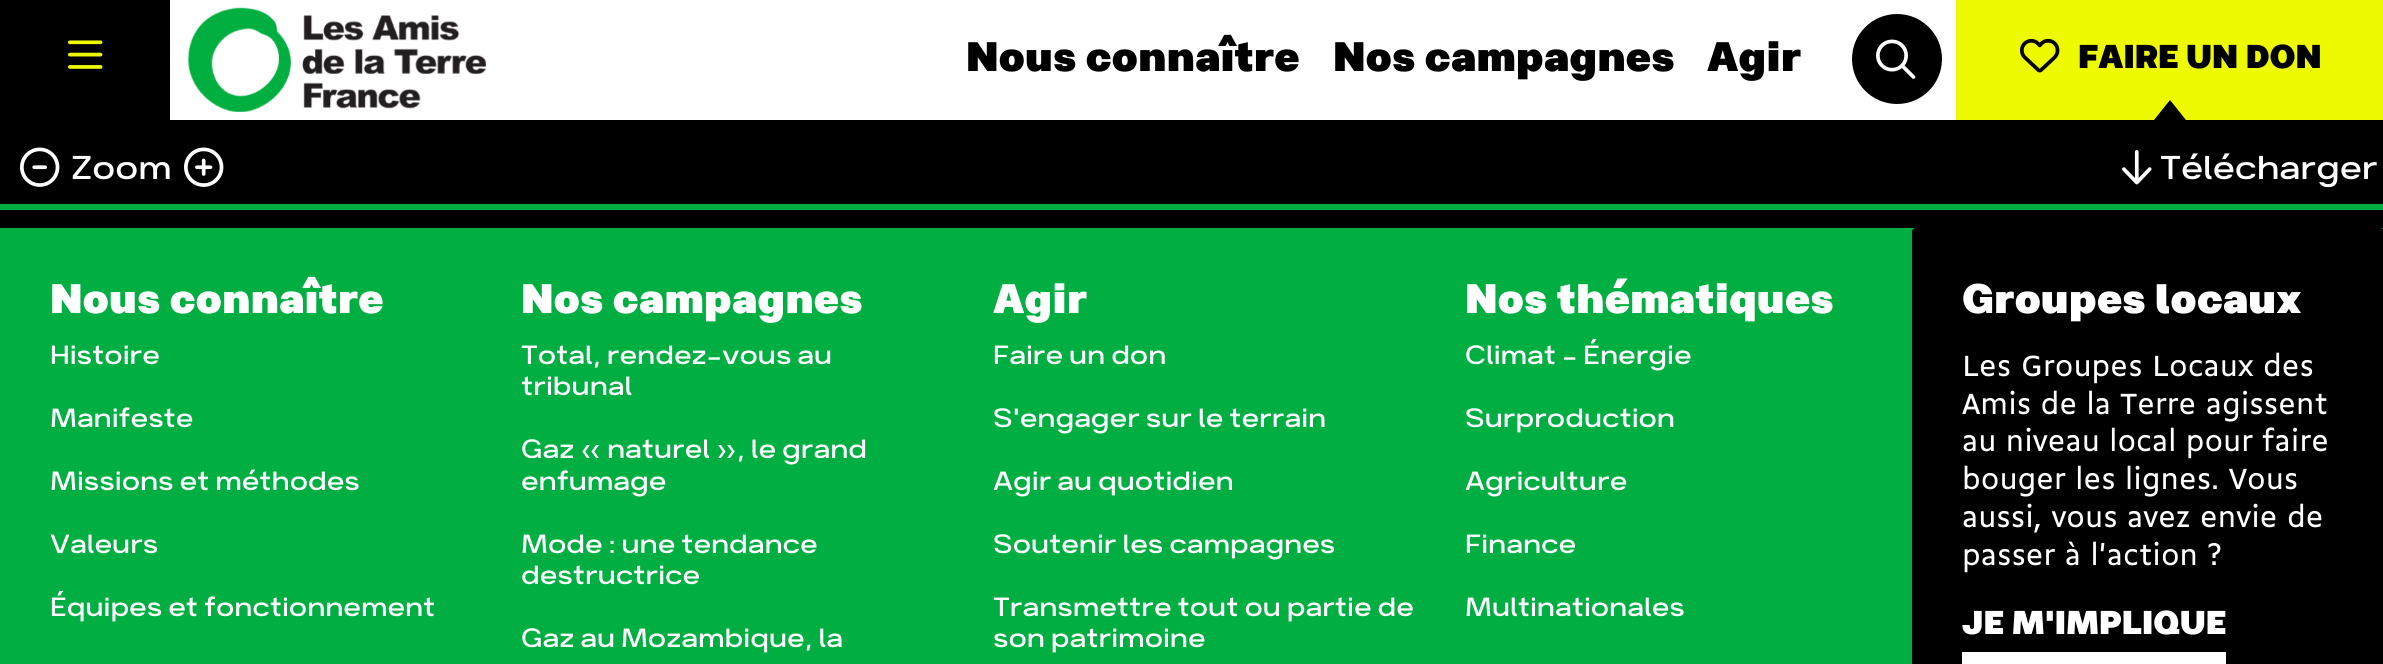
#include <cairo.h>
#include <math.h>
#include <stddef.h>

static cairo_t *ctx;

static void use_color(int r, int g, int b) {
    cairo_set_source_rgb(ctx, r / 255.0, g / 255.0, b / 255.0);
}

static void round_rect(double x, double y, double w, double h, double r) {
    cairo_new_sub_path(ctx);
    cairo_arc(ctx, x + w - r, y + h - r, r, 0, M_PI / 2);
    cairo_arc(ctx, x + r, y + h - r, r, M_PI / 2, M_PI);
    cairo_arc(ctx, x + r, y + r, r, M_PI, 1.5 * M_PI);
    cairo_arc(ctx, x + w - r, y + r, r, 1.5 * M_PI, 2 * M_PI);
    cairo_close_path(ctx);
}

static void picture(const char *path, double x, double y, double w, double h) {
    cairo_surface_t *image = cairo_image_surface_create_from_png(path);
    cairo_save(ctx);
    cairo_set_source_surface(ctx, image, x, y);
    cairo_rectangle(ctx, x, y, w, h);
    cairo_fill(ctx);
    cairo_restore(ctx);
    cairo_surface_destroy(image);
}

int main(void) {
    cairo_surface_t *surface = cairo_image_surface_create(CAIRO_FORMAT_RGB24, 2383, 664);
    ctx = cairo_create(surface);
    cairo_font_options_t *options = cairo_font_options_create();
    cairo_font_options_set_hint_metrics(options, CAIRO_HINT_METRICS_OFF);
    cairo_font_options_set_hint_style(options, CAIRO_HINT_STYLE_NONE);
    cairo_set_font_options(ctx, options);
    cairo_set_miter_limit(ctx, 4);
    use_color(0, 174, 65);
    cairo_paint(ctx);
    use_color(255, 255, 255);
    cairo_rectangle(ctx, 170, 0, 1786, 120);
    cairo_fill(ctx);
    use_color(0, 0, 0);
    cairo_rectangle(ctx, 0, 0, 170, 120);
    cairo_fill(ctx);
    picture("img1.png", 68, 40, 35, 29);
    picture("img2.png", 187, 7, 299, 105);
    cairo_select_font_face(ctx, "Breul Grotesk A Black", CAIRO_FONT_SLANT_NORMAL, CAIRO_FONT_WEIGHT_NORMAL);
    cairo_set_font_size(ctx, 49.25);
    cairo_move_to(ctx, 966, 71);
    cairo_show_text(ctx, "Nous connaître");
    cairo_move_to(ctx, 1333, 71);
    cairo_show_text(ctx, "Nos campagnes");
    cairo_move_to(ctx, 1707, 71);
    cairo_show_text(ctx, "Agir");
    cairo_new_path(ctx);
    cairo_arc(ctx, 1897, 59, 45, 0, 2 * M_PI);
    cairo_fill(ctx);
    picture("img3.png", 1876, 39, 40, 40);
    use_color(238, 250, 0);
    cairo_rectangle(ctx, 1956, 0, 427, 120);
    cairo_fill(ctx);
    picture("img4.png", 2020, 38, 40, 35);
    cairo_set_font_size(ctx, 39.5);
    use_color(0, 0, 0);
    cairo_move_to(ctx, 2078, 68);
    cairo_show_text(ctx, "FAIRE UN DON");
    cairo_new_path(ctx);
    cairo_move_to(ctx, 2186, 120);
    cairo_line_to(ctx, 2154, 120);
    cairo_line_to(ctx, 2170, 100);
    cairo_close_path(ctx);
    cairo_fill(ctx);
    cairo_rectangle(ctx, 0, 120, 2383, 84);
    cairo_fill(ctx);
    picture("img5.png", 20, 147, 40, 40);
    cairo_select_font_face(ctx, "Breul Grotesk A Light", CAIRO_FONT_SLANT_NORMAL, CAIRO_FONT_WEIGHT_NORMAL);
    use_color(255, 255, 255);
    cairo_move_to(ctx, 71, 179);
    cairo_show_text(ctx, "Zoom");
    picture("img6.png", 184, 147, 40, 40);
    picture("img7.png", 2122, 150, 30, 35);
    cairo_move_to(ctx, 2160, 179);
    cairo_show_text(ctx, "Télécharger");
    use_color(0, 0, 0);
    cairo_rectangle(ctx, 0, 210, 2383, 18);
    cairo_fill(ctx);
    cairo_select_font_face(ctx, "Breul Grotesk A Black", CAIRO_FONT_SLANT_NORMAL, CAIRO_FONT_WEIGHT_NORMAL);
    cairo_set_font_size(ctx, 49.25);
    use_color(255, 255, 255);
    cairo_move_to(ctx, 50, 313);
    cairo_show_text(ctx, "Nous connaître");
    cairo_select_font_face(ctx, "Breul Grotesk A Light", CAIRO_FONT_SLANT_NORMAL, CAIRO_FONT_WEIGHT_NORMAL);
    cairo_set_font_size(ctx, 31.5);
    cairo_move_to(ctx, 50, 364);
    cairo_show_text(ctx, "Histoire");
    cairo_move_to(ctx, 50, 427);
    cairo_show_text(ctx, "Manifeste");
    cairo_move_to(ctx, 50, 490);
    cairo_show_text(ctx, "Missions et méthodes");
    cairo_move_to(ctx, 50, 553);
    cairo_show_text(ctx, "Valeurs");
    cairo_move_to(ctx, 50, 616);
    cairo_show_text(ctx, "Équipes et fonctionnement");
    cairo_select_font_face(ctx, "Breul Grotesk A Black", CAIRO_FONT_SLANT_NORMAL, CAIRO_FONT_WEIGHT_NORMAL);
    cairo_set_font_size(ctx, 49.25);
    cairo_move_to(ctx, 521, 313);
    cairo_show_text(ctx, "Nos campagnes");
    cairo_select_font_face(ctx, "Breul Grotesk A Light", CAIRO_FONT_SLANT_NORMAL, CAIRO_FONT_WEIGHT_NORMAL);
    cairo_set_font_size(ctx, 31.5);
    cairo_move_to(ctx, 521, 364);
    cairo_show_text(ctx, "Total, rendez-vous au");
    cairo_move_to(ctx, 521, 395);
    cairo_show_text(ctx, "tribunal");
    cairo_move_to(ctx, 521, 458);
    cairo_show_text(ctx, "Gaz « naturel », le grand");
    cairo_move_to(ctx, 521, 490);
    cairo_show_text(ctx, "enfumage");
    cairo_move_to(ctx, 521, 553);
    cairo_show_text(ctx, "Mode : une tendance");
    cairo_move_to(ctx, 521, 584);
    cairo_show_text(ctx, "destructrice");
    cairo_move_to(ctx, 521, 647);
    cairo_show_text(ctx, "Gaz au Mozambique, la");
    cairo_select_font_face(ctx, "Breul Grotesk A Black", CAIRO_FONT_SLANT_NORMAL, CAIRO_FONT_WEIGHT_NORMAL);
    cairo_set_font_size(ctx, 49.25);
    cairo_move_to(ctx, 993, 313);
    cairo_show_text(ctx, "Agir");
    cairo_select_font_face(ctx, "Breul Grotesk A Light", CAIRO_FONT_SLANT_NORMAL, CAIRO_FONT_WEIGHT_NORMAL);
    cairo_set_font_size(ctx, 31.5);
    cairo_move_to(ctx, 993, 364);
    cairo_show_text(ctx, "Faire un don");
    cairo_move_to(ctx, 993, 427);
    cairo_show_text(ctx, "S'engager sur le terrain");
    cairo_move_to(ctx, 993, 490);
    cairo_show_text(ctx, "Agir au quotidien");
    cairo_move_to(ctx, 993, 553);
    cairo_show_text(ctx, "Soutenir les campagnes");
    cairo_move_to(ctx, 993, 616);
    cairo_show_text(ctx, "Transmettre tout ou partie de");
    cairo_move_to(ctx, 993, 647);
    cairo_show_text(ctx, "son patrimoine");
    cairo_select_font_face(ctx, "Breul Grotesk A Black", CAIRO_FONT_SLANT_NORMAL, CAIRO_FONT_WEIGHT_NORMAL);
    cairo_set_font_size(ctx, 49.25);
    cairo_move_to(ctx, 1465, 313);
    cairo_show_text(ctx, "Nos thématiques");
    cairo_select_font_face(ctx, "Breul Grotesk A Light", CAIRO_FONT_SLANT_NORMAL, CAIRO_FONT_WEIGHT_NORMAL);
    cairo_set_font_size(ctx, 31.5);
    cairo_move_to(ctx, 1465, 364);
    cairo_show_text(ctx, "Climat – Énergie");
    cairo_move_to(ctx, 1465, 427);
    cairo_show_text(ctx, "Surproduction");
    cairo_move_to(ctx, 1465, 490);
    cairo_show_text(ctx, "Agriculture");
    cairo_move_to(ctx, 1465, 553);
    cairo_show_text(ctx, "Finance");
    cairo_move_to(ctx, 1465, 616);
    cairo_show_text(ctx, "Multinationales");
    use_color(0, 0, 0);
    round_rect(1912, 228, 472, 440, 4);
    cairo_fill(ctx);
    cairo_select_font_face(ctx, "Breul Grotesk A Black", CAIRO_FONT_SLANT_NORMAL, CAIRO_FONT_WEIGHT_NORMAL);
    cairo_set_font_size(ctx, 49.25);
    use_color(255, 255, 255);
    cairo_move_to(ctx, 1962, 313);
    cairo_show_text(ctx, "Groupes locaux");
    cairo_select_font_face(ctx, "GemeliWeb", CAIRO_FONT_SLANT_NORMAL, CAIRO_FONT_WEIGHT_NORMAL);
    cairo_set_font_size(ctx, 31.5);
    cairo_move_to(ctx, 1962, 376);
    cairo_show_text(ctx, "Les Groupes Locaux des");
    cairo_move_to(ctx, 1962, 414);
    cairo_show_text(ctx, "Amis de la Terre agissent");
    cairo_move_to(ctx, 1962, 451);
    cairo_show_text(ctx, "au niveau local pour faire");
    cairo_move_to(ctx, 1962, 489);
    cairo_show_text(ctx, "bouger les lignes. Vous");
    cairo_move_to(ctx, 1962, 527);
    cairo_show_text(ctx, "aussi, vous avez envie de");
    cairo_move_to(ctx, 1962, 565);
    cairo_show_text(ctx, "passer à l'action ?");
    cairo_select_font_face(ctx, "Breul Grotesk A Black", CAIRO_FONT_SLANT_NORMAL, CAIRO_FONT_WEIGHT_NORMAL);
    cairo_set_font_size(ctx, 39.5);
    cairo_move_to(ctx, 1962, 634);
    cairo_show_text(ctx, "JE M'IMPLIQUE");
    cairo_rectangle(ctx, 1962, 652, 264, 12);
    cairo_fill(ctx);
    cairo_surface_write_to_png(surface, "result.png");
    cairo_font_options_destroy(options);
    cairo_destroy(ctx);
    cairo_surface_destroy(surface);
    return 0;
}
